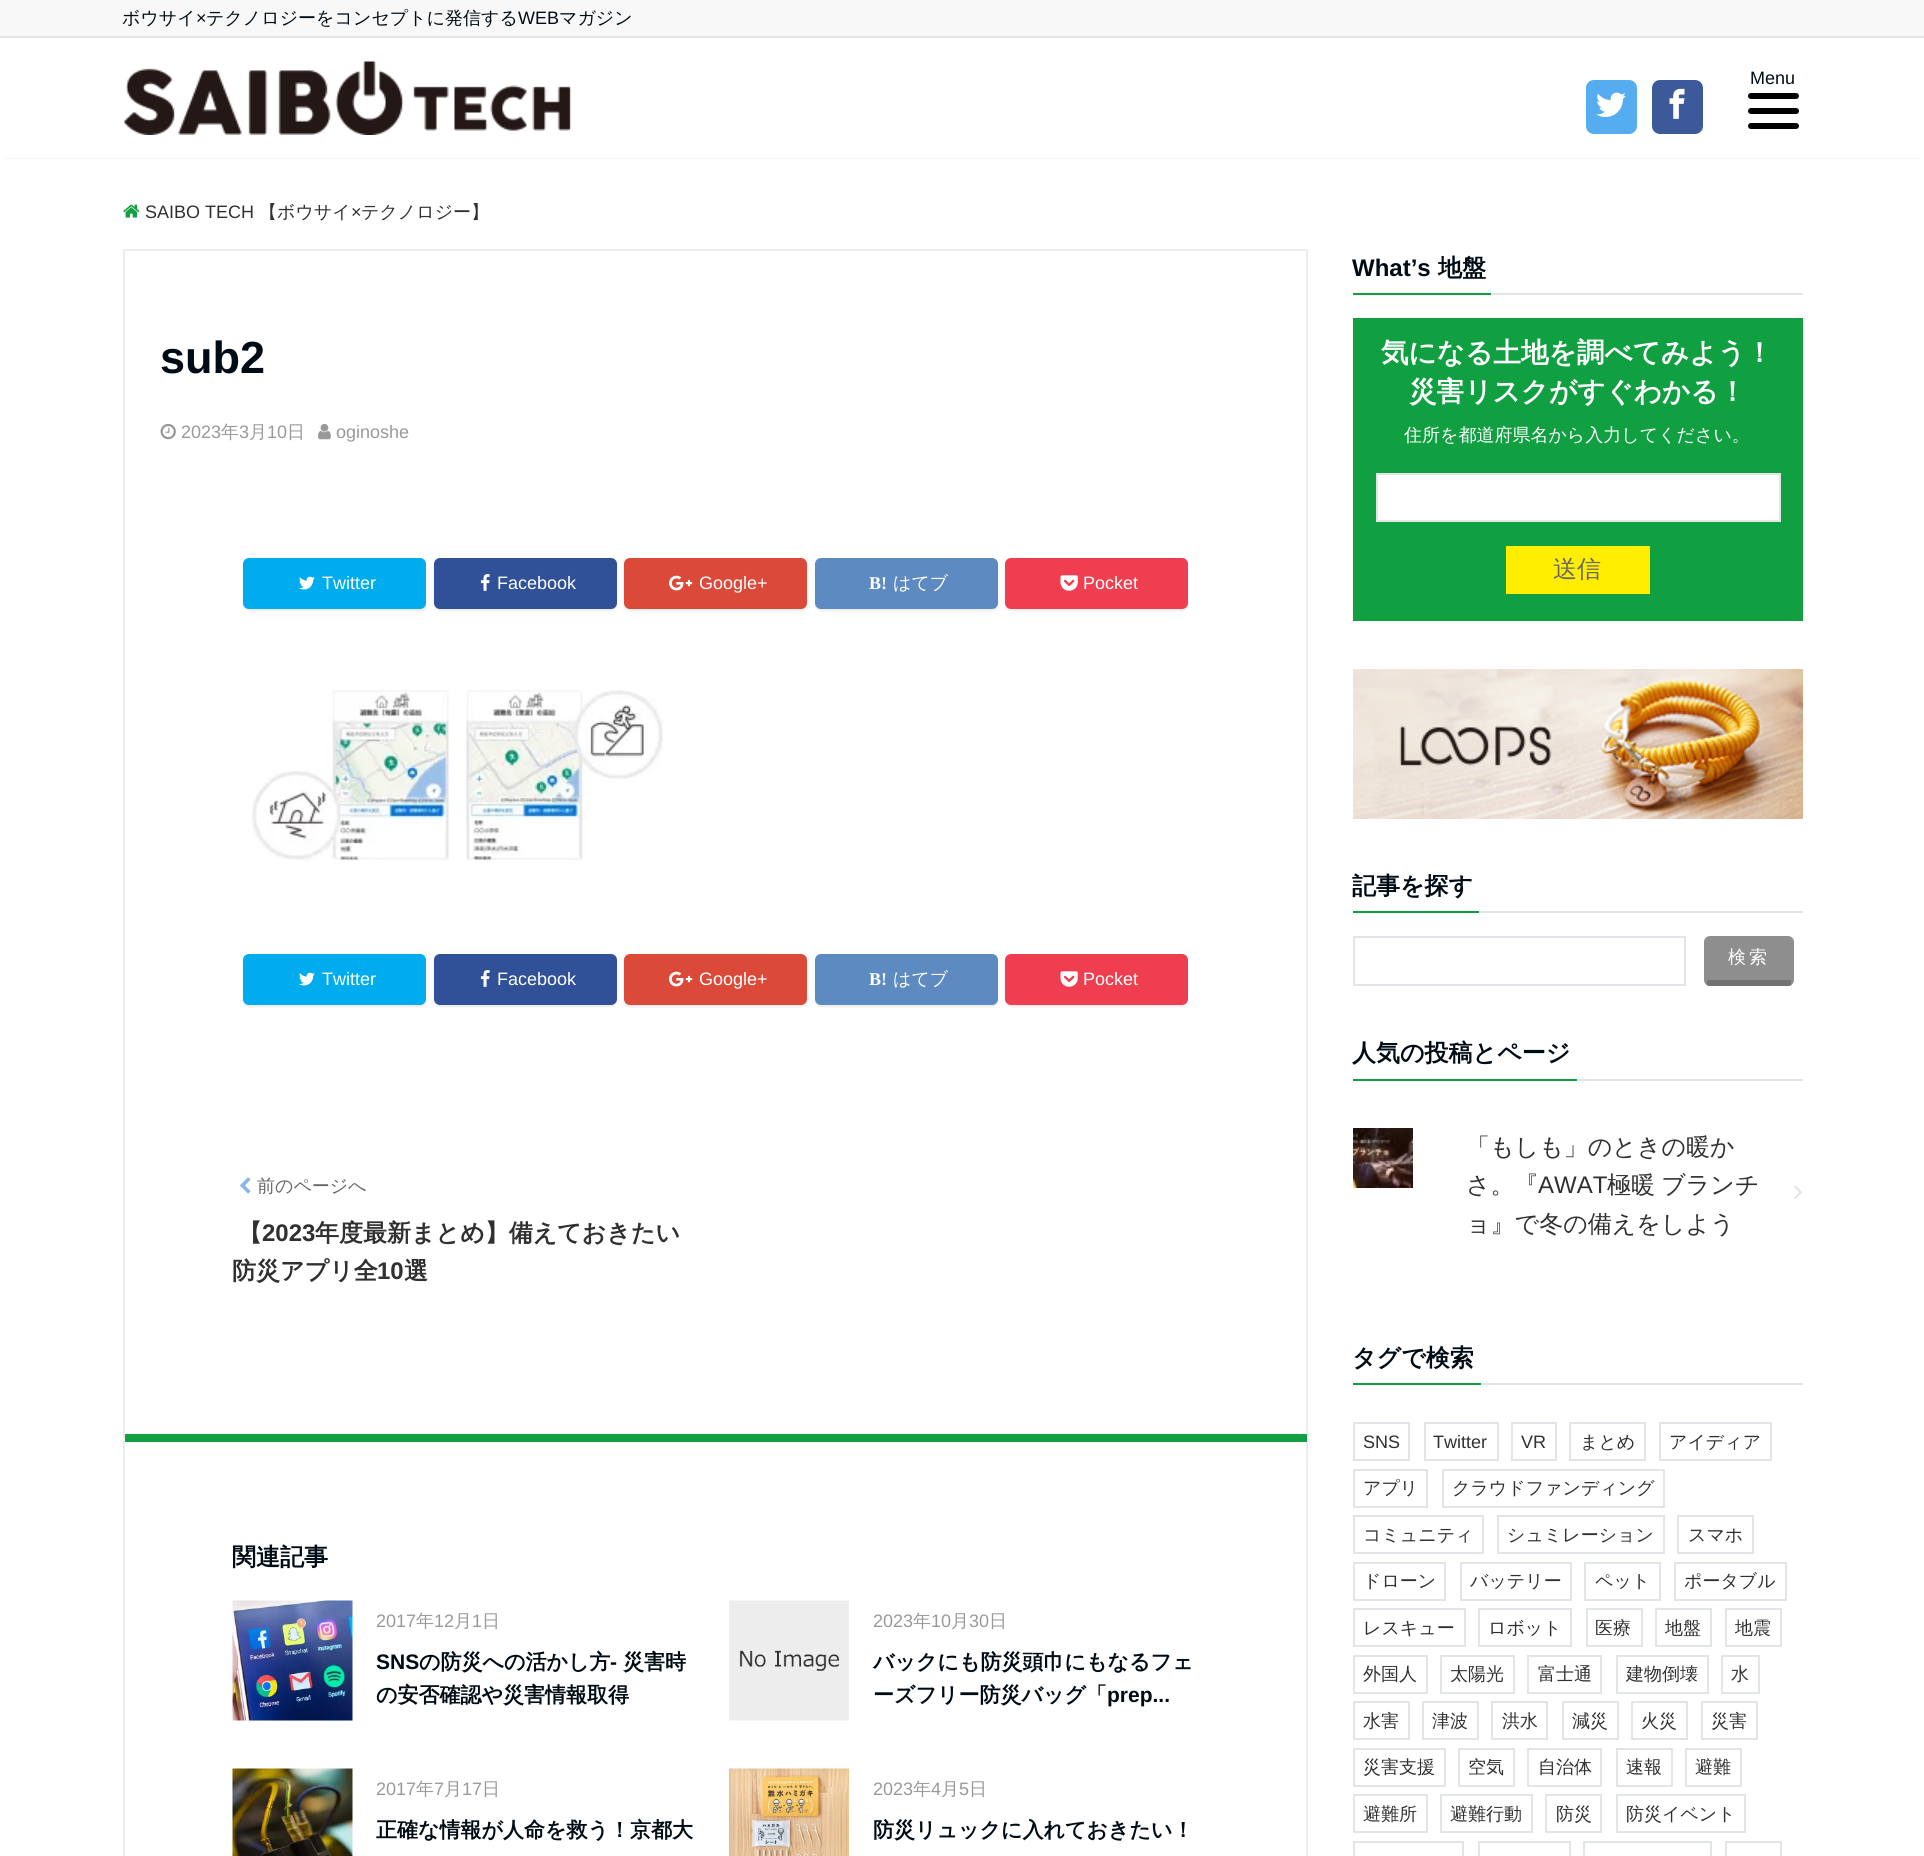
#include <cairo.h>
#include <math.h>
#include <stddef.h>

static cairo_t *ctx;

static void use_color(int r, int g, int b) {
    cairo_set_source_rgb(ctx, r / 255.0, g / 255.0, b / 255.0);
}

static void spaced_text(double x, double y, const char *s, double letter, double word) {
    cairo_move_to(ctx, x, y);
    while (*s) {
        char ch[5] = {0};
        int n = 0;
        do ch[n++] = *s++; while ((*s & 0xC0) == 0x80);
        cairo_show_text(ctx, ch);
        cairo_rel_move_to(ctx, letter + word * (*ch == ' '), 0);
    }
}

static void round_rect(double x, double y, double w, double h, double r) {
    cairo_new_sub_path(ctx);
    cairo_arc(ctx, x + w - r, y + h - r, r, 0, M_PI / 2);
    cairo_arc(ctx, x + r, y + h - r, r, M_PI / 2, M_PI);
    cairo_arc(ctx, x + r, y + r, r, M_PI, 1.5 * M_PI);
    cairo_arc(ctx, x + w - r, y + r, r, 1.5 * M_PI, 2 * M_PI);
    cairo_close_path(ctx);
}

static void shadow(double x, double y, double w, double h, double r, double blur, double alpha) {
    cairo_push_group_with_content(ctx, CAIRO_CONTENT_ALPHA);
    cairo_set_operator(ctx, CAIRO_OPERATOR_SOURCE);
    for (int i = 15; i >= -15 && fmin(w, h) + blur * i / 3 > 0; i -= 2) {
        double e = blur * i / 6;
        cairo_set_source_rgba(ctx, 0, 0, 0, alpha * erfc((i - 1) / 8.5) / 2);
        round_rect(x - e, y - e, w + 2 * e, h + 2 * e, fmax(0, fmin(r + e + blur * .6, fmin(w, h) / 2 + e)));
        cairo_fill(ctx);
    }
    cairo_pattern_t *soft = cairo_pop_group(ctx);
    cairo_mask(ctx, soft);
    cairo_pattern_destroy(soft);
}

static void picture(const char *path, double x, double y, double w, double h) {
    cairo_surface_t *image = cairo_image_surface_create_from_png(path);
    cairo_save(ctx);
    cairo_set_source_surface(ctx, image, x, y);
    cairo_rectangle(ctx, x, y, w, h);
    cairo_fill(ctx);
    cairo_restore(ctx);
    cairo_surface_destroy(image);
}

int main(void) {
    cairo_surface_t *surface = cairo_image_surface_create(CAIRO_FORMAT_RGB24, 1924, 1856);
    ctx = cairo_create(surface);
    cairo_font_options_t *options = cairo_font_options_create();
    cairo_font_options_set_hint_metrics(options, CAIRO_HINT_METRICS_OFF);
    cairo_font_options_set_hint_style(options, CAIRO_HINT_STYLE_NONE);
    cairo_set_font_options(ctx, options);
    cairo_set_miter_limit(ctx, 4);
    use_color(255, 255, 255);
    cairo_paint(ctx);
    use_color(248, 248, 248);
    cairo_rectangle(ctx, 0, 0, 1924, 36);
    cairo_fill(ctx);
    use_color(226, 229, 232);
    cairo_rectangle(ctx, 0, 36, 1924, 2);
    cairo_fill(ctx);
    cairo_select_font_face(ctx, "WenQuanYi Zen Hei Medium", CAIRO_FONT_SLANT_NORMAL, CAIRO_FONT_WEIGHT_NORMAL);
    cairo_set_font_size(ctx, 18);
    use_color(0, 12, 21);
    cairo_move_to(ctx, 122, 24);
    cairo_show_text(ctx, "ボウサイ");
    cairo_select_font_face(ctx, "Liberation Sans", CAIRO_FONT_SLANT_NORMAL, CAIRO_FONT_WEIGHT_NORMAL);
    cairo_move_to(ctx, 196, 24);
    cairo_show_text(ctx, "×");
    cairo_select_font_face(ctx, "WenQuanYi Zen Hei Medium", CAIRO_FONT_SLANT_NORMAL, CAIRO_FONT_WEIGHT_NORMAL);
    cairo_move_to(ctx, 206, 24);
    cairo_show_text(ctx, "テクノロジーをコンセプトに発信する");
    cairo_select_font_face(ctx, "Liberation Sans", CAIRO_FONT_SLANT_NORMAL, CAIRO_FONT_WEIGHT_NORMAL);
    cairo_move_to(ctx, 518, 24);
    cairo_show_text(ctx, "WEB");
    cairo_select_font_face(ctx, "WenQuanYi Zen Hei Medium", CAIRO_FONT_SLANT_NORMAL, CAIRO_FONT_WEIGHT_NORMAL);
    cairo_move_to(ctx, 559, 24);
    cairo_show_text(ctx, "マガジン");
    use_color(0, 0, 0);
    shadow(5, 45, 1915, 111, 0, 2, 0.3);
    use_color(255, 255, 255);
    cairo_rectangle(ctx, 1, 41, 1923, 117);
    cairo_fill(ctx);
    picture("img1.png", 124, 61, 447, 74);
    use_color(85, 172, 238);
    round_rect(1586, 80, 51, 54, 8);
    cairo_fill(ctx);
    picture("img2.png", 1596, 92, 30, 25);
    use_color(60, 90, 153);
    round_rect(1652, 80, 51, 54, 8);
    cairo_fill(ctx);
    picture("img3.png", 1669, 88, 16, 31);
    cairo_select_font_face(ctx, "Liberation Sans", CAIRO_FONT_SLANT_NORMAL, CAIRO_FONT_WEIGHT_NORMAL);
    use_color(0, 12, 21);
    cairo_move_to(ctx, 1750, 84);
    cairo_show_text(ctx, "Menu");
    use_color(0, 0, 0);
    round_rect(1748, 93, 51, 6, 3);
    cairo_fill(ctx);
    round_rect(1748, 108, 51, 6, 3);
    cairo_fill(ctx);
    round_rect(1748, 123, 51, 6, 3);
    cairo_fill(ctx);
    picture("img4.png", 123, 204, 17, 14);
    use_color(48, 48, 48);
    cairo_move_to(ctx, 145, 218);
    cairo_show_text(ctx, "SAIBO TECH");
    cairo_select_font_face(ctx, "WenQuanYi Zen Hei Medium", CAIRO_FONT_SLANT_NORMAL, CAIRO_FONT_WEIGHT_NORMAL);
    cairo_move_to(ctx, 259, 218);
    cairo_show_text(ctx, "【ボウサイ");
    cairo_select_font_face(ctx, "Liberation Sans", CAIRO_FONT_SLANT_NORMAL, CAIRO_FONT_WEIGHT_NORMAL);
    cairo_move_to(ctx, 351, 218);
    cairo_show_text(ctx, "×");
    cairo_select_font_face(ctx, "WenQuanYi Zen Hei Medium", CAIRO_FONT_SLANT_NORMAL, CAIRO_FONT_WEIGHT_NORMAL);
    cairo_move_to(ctx, 361, 218);
    cairo_show_text(ctx, "テクノロジー】");
    cairo_rectangle(ctx, 124, 250, 1183, 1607);
    use_color(235, 237, 240);
    cairo_stroke(ctx);
    cairo_select_font_face(ctx, "Liberation Sans", CAIRO_FONT_SLANT_NORMAL, CAIRO_FONT_WEIGHT_BOLD);
    cairo_set_font_size(ctx, 45);
    use_color(0, 12, 21);
    cairo_move_to(ctx, 160, 373);
    cairo_show_text(ctx, "sub2");
    picture("img5.png", 160, 423, 16, 17);
    cairo_select_font_face(ctx, "Liberation Sans", CAIRO_FONT_SLANT_NORMAL, CAIRO_FONT_WEIGHT_NORMAL);
    cairo_set_font_size(ctx, 18);
    use_color(153, 153, 153);
    cairo_move_to(ctx, 181, 438);
    cairo_show_text(ctx, "2023");
    cairo_select_font_face(ctx, "WenQuanYi Zen Hei Medium", CAIRO_FONT_SLANT_NORMAL, CAIRO_FONT_WEIGHT_NORMAL);
    cairo_move_to(ctx, 221, 438);
    cairo_show_text(ctx, "年");
    cairo_select_font_face(ctx, "Liberation Sans", CAIRO_FONT_SLANT_NORMAL, CAIRO_FONT_WEIGHT_NORMAL);
    cairo_move_to(ctx, 239, 438);
    cairo_show_text(ctx, "3");
    cairo_select_font_face(ctx, "WenQuanYi Zen Hei Medium", CAIRO_FONT_SLANT_NORMAL, CAIRO_FONT_WEIGHT_NORMAL);
    cairo_move_to(ctx, 249, 438);
    cairo_show_text(ctx, "月");
    cairo_select_font_face(ctx, "Liberation Sans", CAIRO_FONT_SLANT_NORMAL, CAIRO_FONT_WEIGHT_NORMAL);
    cairo_move_to(ctx, 267, 438);
    cairo_show_text(ctx, "10");
    cairo_select_font_face(ctx, "WenQuanYi Zen Hei Medium", CAIRO_FONT_SLANT_NORMAL, CAIRO_FONT_WEIGHT_NORMAL);
    cairo_move_to(ctx, 287, 438);
    cairo_show_text(ctx, "日");
    picture("img6.png", 318, 423, 13, 17);
    cairo_select_font_face(ctx, "Liberation Sans", CAIRO_FONT_SLANT_NORMAL, CAIRO_FONT_WEIGHT_NORMAL);
    cairo_move_to(ctx, 336, 438);
    cairo_show_text(ctx, "oginoshe");
    use_color(0, 0, 0);
    shadow(243, 560, 183, 51, 6, 1, 0.08);
    use_color(0, 172, 238);
    round_rect(243, 558, 183, 51, 6);
    cairo_fill(ctx);
    picture("img7.png", 299, 576, 16, 14);
    use_color(255, 255, 255);
    cairo_move_to(ctx, 322, 589);
    cairo_show_text(ctx, "Twitter");
    use_color(0, 0, 0);
    shadow(434, 560, 183, 51, 6, 1, 0.08);
    use_color(48, 80, 151);
    round_rect(434, 558, 183, 51, 6);
    cairo_fill(ctx);
    picture("img8.png", 480, 574, 10, 17);
    use_color(255, 255, 255);
    cairo_move_to(ctx, 497, 589);
    cairo_show_text(ctx, "Facebook");
    use_color(0, 0, 0);
    shadow(624, 560, 183, 51, 6, 1, 0.08);
    use_color(219, 74, 57);
    round_rect(624, 558, 183, 51, 6);
    cairo_fill(ctx);
    picture("img9.png", 669, 575, 24, 16);
    use_color(255, 255, 255);
    cairo_move_to(ctx, 699, 589);
    cairo_show_text(ctx, "Google+");
    use_color(0, 0, 0);
    shadow(815, 560, 183, 51, 6, 1, 0.08);
    use_color(93, 138, 193);
    round_rect(815, 558, 183, 51, 6);
    cairo_fill(ctx);
    cairo_select_font_face(ctx, "Liberation Serif", CAIRO_FONT_SLANT_NORMAL, CAIRO_FONT_WEIGHT_BOLD);
    use_color(255, 255, 255);
    cairo_move_to(ctx, 869, 589);
    cairo_show_text(ctx, "B!");
    cairo_select_font_face(ctx, "WenQuanYi Zen Hei Medium", CAIRO_FONT_SLANT_NORMAL, CAIRO_FONT_WEIGHT_NORMAL);
    cairo_move_to(ctx, 893, 589);
    cairo_show_text(ctx, "はてブ");
    use_color(0, 0, 0);
    shadow(1005, 560, 183, 51, 6, 1, 0.08);
    use_color(240, 62, 81);
    round_rect(1005, 558, 183, 51, 6);
    cairo_fill(ctx);
    picture("img10.png", 1060, 575, 18, 16);
    cairo_select_font_face(ctx, "Liberation Sans", CAIRO_FONT_SLANT_NORMAL, CAIRO_FONT_WEIGHT_NORMAL);
    use_color(255, 255, 255);
    cairo_move_to(ctx, 1083, 589);
    cairo_show_text(ctx, "Pocket");
    picture("img11.png", 252, 690, 411, 171);
    use_color(0, 0, 0);
    shadow(243, 956, 183, 51, 6, 1, 0.08);
    use_color(0, 172, 238);
    round_rect(243, 954, 183, 51, 6);
    cairo_fill(ctx);
    picture("img7.png", 299, 972, 16, 14);
    use_color(255, 255, 255);
    cairo_move_to(ctx, 322, 985);
    cairo_show_text(ctx, "Twitter");
    use_color(0, 0, 0);
    shadow(434, 956, 183, 51, 6, 1, 0.08);
    use_color(48, 80, 151);
    round_rect(434, 954, 183, 51, 6);
    cairo_fill(ctx);
    picture("img8.png", 480, 970, 10, 17);
    use_color(255, 255, 255);
    cairo_move_to(ctx, 497, 985);
    cairo_show_text(ctx, "Facebook");
    use_color(0, 0, 0);
    shadow(624, 956, 183, 51, 6, 1, 0.08);
    use_color(219, 74, 57);
    round_rect(624, 954, 183, 51, 6);
    cairo_fill(ctx);
    picture("img9.png", 669, 971, 24, 16);
    use_color(255, 255, 255);
    cairo_move_to(ctx, 699, 985);
    cairo_show_text(ctx, "Google+");
    use_color(0, 0, 0);
    shadow(815, 956, 183, 51, 6, 1, 0.08);
    use_color(93, 138, 193);
    round_rect(815, 954, 183, 51, 6);
    cairo_fill(ctx);
    cairo_select_font_face(ctx, "Liberation Serif", CAIRO_FONT_SLANT_NORMAL, CAIRO_FONT_WEIGHT_BOLD);
    use_color(255, 255, 255);
    cairo_move_to(ctx, 869, 985);
    cairo_show_text(ctx, "B!");
    cairo_select_font_face(ctx, "WenQuanYi Zen Hei Medium", CAIRO_FONT_SLANT_NORMAL, CAIRO_FONT_WEIGHT_NORMAL);
    cairo_move_to(ctx, 893, 985);
    cairo_show_text(ctx, "はてブ");
    use_color(0, 0, 0);
    shadow(1005, 956, 183, 51, 6, 1, 0.08);
    use_color(240, 62, 81);
    round_rect(1005, 954, 183, 51, 6);
    cairo_fill(ctx);
    picture("img10.png", 1060, 971, 18, 16);
    cairo_select_font_face(ctx, "Liberation Sans", CAIRO_FONT_SLANT_NORMAL, CAIRO_FONT_WEIGHT_NORMAL);
    use_color(255, 255, 255);
    cairo_move_to(ctx, 1083, 985);
    cairo_show_text(ctx, "Pocket");
    picture("img12.png", 240, 1177, 11, 17);
    cairo_select_font_face(ctx, "WenQuanYi Zen Hei Medium", CAIRO_FONT_SLANT_NORMAL, CAIRO_FONT_WEIGHT_NORMAL);
    use_color(102, 102, 102);
    cairo_move_to(ctx, 257, 1192);
    cairo_show_text(ctx, "前のページへ");
    cairo_select_font_face(ctx, "WenQuanYi Zen Hei", CAIRO_FONT_SLANT_NORMAL, CAIRO_FONT_WEIGHT_BOLD);
    cairo_set_font_size(ctx, 24);
    use_color(48, 48, 48);
    cairo_move_to(ctx, 238, 1241);
    cairo_show_text(ctx, "【");
    cairo_select_font_face(ctx, "Liberation Sans", CAIRO_FONT_SLANT_NORMAL, CAIRO_FONT_WEIGHT_BOLD);
    cairo_move_to(ctx, 262, 1241);
    cairo_show_text(ctx, "2023");
    cairo_select_font_face(ctx, "WenQuanYi Zen Hei", CAIRO_FONT_SLANT_NORMAL, CAIRO_FONT_WEIGHT_BOLD);
    cairo_move_to(ctx, 315, 1241);
    cairo_show_text(ctx, "年度最新まとめ】備えておきたい");
    cairo_move_to(ctx, 232, 1279);
    cairo_show_text(ctx, "防災アプリ全");
    cairo_select_font_face(ctx, "Liberation Sans", CAIRO_FONT_SLANT_NORMAL, CAIRO_FONT_WEIGHT_BOLD);
    cairo_move_to(ctx, 377, 1279);
    cairo_show_text(ctx, "10");
    cairo_select_font_face(ctx, "WenQuanYi Zen Hei", CAIRO_FONT_SLANT_NORMAL, CAIRO_FONT_WEIGHT_BOLD);
    cairo_move_to(ctx, 404, 1279);
    cairo_show_text(ctx, "選");
    use_color(17, 160, 65);
    cairo_rectangle(ctx, 125, 1434, 1182, 8);
    cairo_fill(ctx);
    use_color(0, 12, 21);
    cairo_move_to(ctx, 232, 1565);
    cairo_show_text(ctx, "関連記事");
    picture("img13.png", 232, 1600, 121, 121);
    cairo_select_font_face(ctx, "Liberation Sans", CAIRO_FONT_SLANT_NORMAL, CAIRO_FONT_WEIGHT_NORMAL);
    cairo_set_font_size(ctx, 18);
    use_color(153, 153, 153);
    cairo_move_to(ctx, 376, 1627);
    cairo_show_text(ctx, "2017");
    cairo_select_font_face(ctx, "WenQuanYi Zen Hei Medium", CAIRO_FONT_SLANT_NORMAL, CAIRO_FONT_WEIGHT_NORMAL);
    cairo_move_to(ctx, 416, 1627);
    cairo_show_text(ctx, "年");
    cairo_select_font_face(ctx, "Liberation Sans", CAIRO_FONT_SLANT_NORMAL, CAIRO_FONT_WEIGHT_NORMAL);
    cairo_move_to(ctx, 434, 1627);
    cairo_show_text(ctx, "12");
    cairo_select_font_face(ctx, "WenQuanYi Zen Hei Medium", CAIRO_FONT_SLANT_NORMAL, CAIRO_FONT_WEIGHT_NORMAL);
    cairo_move_to(ctx, 454, 1627);
    cairo_show_text(ctx, "月");
    cairo_select_font_face(ctx, "Liberation Sans", CAIRO_FONT_SLANT_NORMAL, CAIRO_FONT_WEIGHT_NORMAL);
    cairo_move_to(ctx, 472, 1627);
    cairo_show_text(ctx, "1");
    cairo_select_font_face(ctx, "WenQuanYi Zen Hei Medium", CAIRO_FONT_SLANT_NORMAL, CAIRO_FONT_WEIGHT_NORMAL);
    cairo_move_to(ctx, 482, 1627);
    cairo_show_text(ctx, "日");
    cairo_select_font_face(ctx, "Liberation Sans", CAIRO_FONT_SLANT_NORMAL, CAIRO_FONT_WEIGHT_BOLD);
    cairo_set_font_size(ctx, 21);
    use_color(0, 12, 21);
    cairo_move_to(ctx, 376, 1669);
    cairo_show_text(ctx, "SNS");
    cairo_select_font_face(ctx, "WenQuanYi Zen Hei", CAIRO_FONT_SLANT_NORMAL, CAIRO_FONT_WEIGHT_BOLD);
    cairo_move_to(ctx, 419, 1669);
    cairo_show_text(ctx, "の防災への活かし方");
    cairo_select_font_face(ctx, "Liberation Sans", CAIRO_FONT_SLANT_NORMAL, CAIRO_FONT_WEIGHT_BOLD);
    cairo_move_to(ctx, 610, 1669);
    cairo_show_text(ctx, "-");
    cairo_select_font_face(ctx, "WenQuanYi Zen Hei", CAIRO_FONT_SLANT_NORMAL, CAIRO_FONT_WEIGHT_BOLD);
    cairo_move_to(ctx, 623, 1669);
    cairo_show_text(ctx, "災害時");
    cairo_move_to(ctx, 376, 1702);
    cairo_show_text(ctx, "の安否確認や災害情報取得");
    picture("img14.png", 729, 1600, 120, 121);
    cairo_select_font_face(ctx, "Liberation Sans", CAIRO_FONT_SLANT_NORMAL, CAIRO_FONT_WEIGHT_NORMAL);
    cairo_set_font_size(ctx, 18);
    use_color(153, 153, 153);
    cairo_move_to(ctx, 873, 1627);
    cairo_show_text(ctx, "2023");
    cairo_select_font_face(ctx, "WenQuanYi Zen Hei Medium", CAIRO_FONT_SLANT_NORMAL, CAIRO_FONT_WEIGHT_NORMAL);
    cairo_move_to(ctx, 913, 1627);
    cairo_show_text(ctx, "年");
    cairo_select_font_face(ctx, "Liberation Sans", CAIRO_FONT_SLANT_NORMAL, CAIRO_FONT_WEIGHT_NORMAL);
    cairo_move_to(ctx, 931, 1627);
    cairo_show_text(ctx, "10");
    cairo_select_font_face(ctx, "WenQuanYi Zen Hei Medium", CAIRO_FONT_SLANT_NORMAL, CAIRO_FONT_WEIGHT_NORMAL);
    cairo_move_to(ctx, 951, 1627);
    cairo_show_text(ctx, "月");
    cairo_select_font_face(ctx, "Liberation Sans", CAIRO_FONT_SLANT_NORMAL, CAIRO_FONT_WEIGHT_NORMAL);
    cairo_move_to(ctx, 969, 1627);
    cairo_show_text(ctx, "30");
    cairo_select_font_face(ctx, "WenQuanYi Zen Hei Medium", CAIRO_FONT_SLANT_NORMAL, CAIRO_FONT_WEIGHT_NORMAL);
    cairo_move_to(ctx, 989, 1627);
    cairo_show_text(ctx, "日");
    cairo_select_font_face(ctx, "WenQuanYi Zen Hei", CAIRO_FONT_SLANT_NORMAL, CAIRO_FONT_WEIGHT_BOLD);
    cairo_set_font_size(ctx, 21);
    use_color(0, 12, 21);
    cairo_move_to(ctx, 873, 1669);
    cairo_show_text(ctx, "バックにも防災頭巾にもなるフェ");
    cairo_move_to(ctx, 873, 1702);
    cairo_show_text(ctx, "ーズフリー防災バッグ「");
    cairo_select_font_face(ctx, "Liberation Sans", CAIRO_FONT_SLANT_NORMAL, CAIRO_FONT_WEIGHT_BOLD);
    cairo_move_to(ctx, 1107, 1702);
    cairo_show_text(ctx, "prep...");
    picture("img15.png", 232, 1768, 121, 88);
    cairo_select_font_face(ctx, "Liberation Sans", CAIRO_FONT_SLANT_NORMAL, CAIRO_FONT_WEIGHT_NORMAL);
    cairo_set_font_size(ctx, 18);
    use_color(153, 153, 153);
    cairo_move_to(ctx, 376, 1795);
    cairo_show_text(ctx, "2017");
    cairo_select_font_face(ctx, "WenQuanYi Zen Hei Medium", CAIRO_FONT_SLANT_NORMAL, CAIRO_FONT_WEIGHT_NORMAL);
    cairo_move_to(ctx, 416, 1795);
    cairo_show_text(ctx, "年");
    cairo_select_font_face(ctx, "Liberation Sans", CAIRO_FONT_SLANT_NORMAL, CAIRO_FONT_WEIGHT_NORMAL);
    cairo_move_to(ctx, 434, 1795);
    cairo_show_text(ctx, "7");
    cairo_select_font_face(ctx, "WenQuanYi Zen Hei Medium", CAIRO_FONT_SLANT_NORMAL, CAIRO_FONT_WEIGHT_NORMAL);
    cairo_move_to(ctx, 444, 1795);
    cairo_show_text(ctx, "月");
    cairo_select_font_face(ctx, "Liberation Sans", CAIRO_FONT_SLANT_NORMAL, CAIRO_FONT_WEIGHT_NORMAL);
    cairo_move_to(ctx, 462, 1795);
    cairo_show_text(ctx, "17");
    cairo_select_font_face(ctx, "WenQuanYi Zen Hei Medium", CAIRO_FONT_SLANT_NORMAL, CAIRO_FONT_WEIGHT_NORMAL);
    cairo_move_to(ctx, 482, 1795);
    cairo_show_text(ctx, "日");
    cairo_select_font_face(ctx, "WenQuanYi Zen Hei", CAIRO_FONT_SLANT_NORMAL, CAIRO_FONT_WEIGHT_BOLD);
    cairo_set_font_size(ctx, 21);
    use_color(0, 12, 21);
    cairo_move_to(ctx, 376, 1837);
    cairo_show_text(ctx, "正確な情報が人命を救う！京都大");
    picture("img16.png", 729, 1768, 120, 88);
    cairo_select_font_face(ctx, "Liberation Sans", CAIRO_FONT_SLANT_NORMAL, CAIRO_FONT_WEIGHT_NORMAL);
    cairo_set_font_size(ctx, 18);
    use_color(153, 153, 153);
    cairo_move_to(ctx, 873, 1795);
    cairo_show_text(ctx, "2023");
    cairo_select_font_face(ctx, "WenQuanYi Zen Hei Medium", CAIRO_FONT_SLANT_NORMAL, CAIRO_FONT_WEIGHT_NORMAL);
    cairo_move_to(ctx, 913, 1795);
    cairo_show_text(ctx, "年");
    cairo_select_font_face(ctx, "Liberation Sans", CAIRO_FONT_SLANT_NORMAL, CAIRO_FONT_WEIGHT_NORMAL);
    cairo_move_to(ctx, 931, 1795);
    cairo_show_text(ctx, "4");
    cairo_select_font_face(ctx, "WenQuanYi Zen Hei Medium", CAIRO_FONT_SLANT_NORMAL, CAIRO_FONT_WEIGHT_NORMAL);
    cairo_move_to(ctx, 941, 1795);
    cairo_show_text(ctx, "月");
    cairo_select_font_face(ctx, "Liberation Sans", CAIRO_FONT_SLANT_NORMAL, CAIRO_FONT_WEIGHT_NORMAL);
    cairo_move_to(ctx, 959, 1795);
    cairo_show_text(ctx, "5");
    cairo_select_font_face(ctx, "WenQuanYi Zen Hei Medium", CAIRO_FONT_SLANT_NORMAL, CAIRO_FONT_WEIGHT_NORMAL);
    cairo_move_to(ctx, 969, 1795);
    cairo_show_text(ctx, "日");
    cairo_select_font_face(ctx, "WenQuanYi Zen Hei", CAIRO_FONT_SLANT_NORMAL, CAIRO_FONT_WEIGHT_BOLD);
    cairo_set_font_size(ctx, 21);
    use_color(0, 12, 21);
    cairo_move_to(ctx, 873, 1837);
    cairo_show_text(ctx, "防災リュックに入れておきたい！");
    use_color(226, 229, 232);
    cairo_rectangle(ctx, 1491, 293, 312, 2);
    cairo_fill(ctx);
    use_color(17, 160, 65);
    cairo_rectangle(ctx, 1353, 293, 138, 2);
    cairo_fill(ctx);
    cairo_select_font_face(ctx, "Liberation Sans", CAIRO_FONT_SLANT_NORMAL, CAIRO_FONT_WEIGHT_BOLD);
    cairo_set_font_size(ctx, 24);
    use_color(0, 12, 21);
    cairo_move_to(ctx, 1352, 276);
    cairo_show_text(ctx, "What’s");
    cairo_select_font_face(ctx, "WenQuanYi Zen Hei", CAIRO_FONT_SLANT_NORMAL, CAIRO_FONT_WEIGHT_BOLD);
    cairo_move_to(ctx, 1438, 276);
    cairo_show_text(ctx, "地盤");
    use_color(17, 160, 65);
    cairo_rectangle(ctx, 1353, 318, 450, 303);
    cairo_fill(ctx);
    cairo_set_font_size(ctx, 27.6);
    use_color(255, 255, 255);
    cairo_move_to(ctx, 1381, 362);
    cairo_show_text(ctx, "気になる土地を調べてみよう！");
    cairo_move_to(ctx, 1409, 401);
    cairo_show_text(ctx, "災害リスクがすぐわかる！");
    cairo_select_font_face(ctx, "WenQuanYi Zen Hei Medium", CAIRO_FONT_SLANT_NORMAL, CAIRO_FONT_WEIGHT_NORMAL);
    cairo_set_font_size(ctx, 18);
    cairo_move_to(ctx, 1404, 441);
    cairo_show_text(ctx, "住所を都道府県名から入力してください。");
    cairo_rectangle(ctx, 1377, 474, 403, 47);
    cairo_fill_preserve(ctx);
    use_color(226, 229, 232);
    cairo_stroke(ctx);
    use_color(255, 238, 0);
    cairo_rectangle(ctx, 1506, 546, 144, 48);
    cairo_fill(ctx);
    cairo_set_font_size(ctx, 24);
    use_color(102, 102, 102);
    cairo_move_to(ctx, 1553, 577);
    cairo_show_text(ctx, "送信");
    picture("img17.png", 1353, 669, 450, 150);
    use_color(226, 229, 232);
    cairo_rectangle(ctx, 1479, 911, 324, 2);
    cairo_fill(ctx);
    use_color(17, 160, 65);
    cairo_rectangle(ctx, 1353, 911, 126, 2);
    cairo_fill(ctx);
    cairo_select_font_face(ctx, "WenQuanYi Zen Hei", CAIRO_FONT_SLANT_NORMAL, CAIRO_FONT_WEIGHT_BOLD);
    use_color(0, 12, 21);
    cairo_move_to(ctx, 1352, 894);
    cairo_show_text(ctx, "記事を探す");
    cairo_rectangle(ctx, 1354, 937, 331, 48);
    use_color(226, 229, 232);
    cairo_stroke(ctx);
    use_color(142, 142, 142);
    round_rect(1704, 936, 90, 50, 6);
    cairo_fill(ctx);
    cairo_set_source_rgba(ctx, 0, 0, 0, 0.2);
    cairo_rectangle(ctx, 1707, 980, 84, 6);
    cairo_fill(ctx);
    cairo_select_font_face(ctx, "WenQuanYi Zen Hei Medium", CAIRO_FONT_SLANT_NORMAL, CAIRO_FONT_WEIGHT_NORMAL);
    cairo_set_font_size(ctx, 18);
    use_color(255, 255, 255);
    spaced_text(1728, 963, "検索", 3, 0);
    use_color(226, 229, 232);
    cairo_rectangle(ctx, 1577, 1079, 226, 2);
    cairo_fill(ctx);
    use_color(17, 160, 65);
    cairo_rectangle(ctx, 1353, 1079, 224, 2);
    cairo_fill(ctx);
    cairo_select_font_face(ctx, "WenQuanYi Zen Hei", CAIRO_FONT_SLANT_NORMAL, CAIRO_FONT_WEIGHT_BOLD);
    cairo_set_font_size(ctx, 24);
    use_color(0, 12, 21);
    cairo_move_to(ctx, 1352, 1061);
    cairo_show_text(ctx, "人気の投稿とページ");
    picture("img18.png", 1353, 1128, 60, 60);
    picture("img19.png", 1794, 1185, 8, 14);
    cairo_select_font_face(ctx, "WenQuanYi Zen Hei Medium", CAIRO_FONT_SLANT_NORMAL, CAIRO_FONT_WEIGHT_NORMAL);
    use_color(48, 48, 48);
    cairo_move_to(ctx, 1466, 1155);
    cairo_show_text(ctx, "「もしも」のときの暖か");
    cairo_move_to(ctx, 1466, 1193);
    cairo_show_text(ctx, "さ。『");
    cairo_select_font_face(ctx, "Liberation Sans", CAIRO_FONT_SLANT_NORMAL, CAIRO_FONT_WEIGHT_NORMAL);
    cairo_move_to(ctx, 1538, 1193);
    cairo_show_text(ctx, "AWAT");
    cairo_select_font_face(ctx, "WenQuanYi Zen Hei Medium", CAIRO_FONT_SLANT_NORMAL, CAIRO_FONT_WEIGHT_NORMAL);
    spaced_text(1607, 1193, "極暖 ブランチ", 0, -1);
    picture("img20.png", 1794, 1185, 8, 14);
    cairo_move_to(ctx, 1466, 1232);
    cairo_show_text(ctx, "ョ』で冬の備えをしよう");
    use_color(226, 229, 232);
    cairo_rectangle(ctx, 1481, 1383, 322, 2);
    cairo_fill(ctx);
    use_color(17, 160, 65);
    cairo_rectangle(ctx, 1353, 1383, 128, 2);
    cairo_fill(ctx);
    cairo_select_font_face(ctx, "WenQuanYi Zen Hei", CAIRO_FONT_SLANT_NORMAL, CAIRO_FONT_WEIGHT_BOLD);
    use_color(0, 12, 21);
    cairo_move_to(ctx, 1352, 1366);
    cairo_show_text(ctx, "タグで検索");
    cairo_rectangle(ctx, 1354, 1423, 55, 37);
    use_color(226, 229, 232);
    cairo_stroke(ctx);
    cairo_select_font_face(ctx, "Liberation Sans", CAIRO_FONT_SLANT_NORMAL, CAIRO_FONT_WEIGHT_NORMAL);
    cairo_set_font_size(ctx, 18);
    use_color(48, 48, 48);
    cairo_move_to(ctx, 1363, 1448);
    cairo_show_text(ctx, "SNS");
    cairo_rectangle(ctx, 1425, 1423, 73, 37);
    use_color(226, 229, 232);
    cairo_stroke(ctx);
    use_color(48, 48, 48);
    cairo_move_to(ctx, 1433, 1448);
    cairo_show_text(ctx, "Twitter");
    cairo_rectangle(ctx, 1512, 1423, 44, 37);
    use_color(226, 229, 232);
    cairo_stroke(ctx);
    use_color(48, 48, 48);
    cairo_move_to(ctx, 1521, 1448);
    cairo_show_text(ctx, "VR");
    cairo_rectangle(ctx, 1570, 1423, 75, 37);
    use_color(226, 229, 232);
    cairo_stroke(ctx);
    cairo_select_font_face(ctx, "WenQuanYi Zen Hei Medium", CAIRO_FONT_SLANT_NORMAL, CAIRO_FONT_WEIGHT_NORMAL);
    use_color(48, 48, 48);
    cairo_move_to(ctx, 1580, 1448);
    cairo_show_text(ctx, "まとめ");
    cairo_rectangle(ctx, 1660, 1423, 111, 37);
    use_color(226, 229, 232);
    cairo_stroke(ctx);
    use_color(48, 48, 48);
    cairo_move_to(ctx, 1669, 1448);
    cairo_show_text(ctx, "アイディア");
    cairo_rectangle(ctx, 1354, 1470, 73, 37);
    use_color(226, 229, 232);
    cairo_stroke(ctx);
    use_color(48, 48, 48);
    cairo_move_to(ctx, 1363, 1494);
    cairo_show_text(ctx, "アプリ");
    cairo_rectangle(ctx, 1443, 1470, 221, 37);
    use_color(226, 229, 232);
    cairo_stroke(ctx);
    use_color(48, 48, 48);
    cairo_move_to(ctx, 1452, 1494);
    cairo_show_text(ctx, "クラウドファンディング");
    cairo_rectangle(ctx, 1354, 1516, 129, 37);
    use_color(226, 229, 232);
    cairo_stroke(ctx);
    use_color(48, 48, 48);
    cairo_move_to(ctx, 1363, 1541);
    cairo_show_text(ctx, "コミュニティ");
    cairo_rectangle(ctx, 1498, 1516, 166, 37);
    use_color(226, 229, 232);
    cairo_stroke(ctx);
    use_color(48, 48, 48);
    cairo_move_to(ctx, 1507, 1541);
    cairo_show_text(ctx, "シュミレーション");
    cairo_rectangle(ctx, 1678, 1516, 75, 37);
    use_color(226, 229, 232);
    cairo_stroke(ctx);
    use_color(48, 48, 48);
    cairo_move_to(ctx, 1688, 1541);
    cairo_show_text(ctx, "スマホ");
    cairo_rectangle(ctx, 1354, 1563, 91, 37);
    use_color(226, 229, 232);
    cairo_stroke(ctx);
    use_color(48, 48, 48);
    cairo_move_to(ctx, 1363, 1587);
    cairo_show_text(ctx, "ドローン");
    cairo_rectangle(ctx, 1461, 1563, 110, 37);
    use_color(226, 229, 232);
    cairo_stroke(ctx);
    use_color(48, 48, 48);
    cairo_move_to(ctx, 1470, 1587);
    cairo_show_text(ctx, "バッテリー");
    cairo_rectangle(ctx, 1585, 1563, 75, 37);
    use_color(226, 229, 232);
    cairo_stroke(ctx);
    use_color(48, 48, 48);
    cairo_move_to(ctx, 1595, 1587);
    cairo_show_text(ctx, "ペット");
    cairo_rectangle(ctx, 1675, 1563, 111, 37);
    use_color(226, 229, 232);
    cairo_stroke(ctx);
    use_color(48, 48, 48);
    cairo_move_to(ctx, 1684, 1587);
    cairo_show_text(ctx, "ポータブル");
    cairo_rectangle(ctx, 1354, 1609, 111, 37);
    use_color(226, 229, 232);
    cairo_stroke(ctx);
    use_color(48, 48, 48);
    cairo_move_to(ctx, 1363, 1634);
    cairo_show_text(ctx, "レスキュー");
    cairo_rectangle(ctx, 1479, 1609, 92, 37);
    use_color(226, 229, 232);
    cairo_stroke(ctx);
    use_color(48, 48, 48);
    cairo_move_to(ctx, 1488, 1634);
    cairo_show_text(ctx, "ロボット");
    cairo_rectangle(ctx, 1587, 1609, 55, 37);
    use_color(226, 229, 232);
    cairo_stroke(ctx);
    use_color(48, 48, 48);
    cairo_move_to(ctx, 1595, 1634);
    cairo_show_text(ctx, "医療");
    cairo_rectangle(ctx, 1656, 1609, 55, 37);
    use_color(226, 229, 232);
    cairo_stroke(ctx);
    use_color(48, 48, 48);
    cairo_move_to(ctx, 1665, 1634);
    cairo_show_text(ctx, "地盤");
    cairo_rectangle(ctx, 1726, 1609, 55, 37);
    use_color(226, 229, 232);
    cairo_stroke(ctx);
    use_color(48, 48, 48);
    cairo_move_to(ctx, 1735, 1634);
    cairo_show_text(ctx, "地震");
    cairo_rectangle(ctx, 1354, 1656, 73, 37);
    use_color(226, 229, 232);
    cairo_stroke(ctx);
    use_color(48, 48, 48);
    cairo_move_to(ctx, 1363, 1680);
    cairo_show_text(ctx, "外国人");
    cairo_rectangle(ctx, 1441, 1656, 73, 37);
    use_color(226, 229, 232);
    cairo_stroke(ctx);
    use_color(48, 48, 48);
    cairo_move_to(ctx, 1450, 1680);
    cairo_show_text(ctx, "太陽光");
    cairo_rectangle(ctx, 1528, 1656, 73, 37);
    use_color(226, 229, 232);
    cairo_stroke(ctx);
    use_color(48, 48, 48);
    cairo_move_to(ctx, 1538, 1680);
    cairo_show_text(ctx, "富士通");
    cairo_rectangle(ctx, 1617, 1656, 91, 37);
    use_color(226, 229, 232);
    cairo_stroke(ctx);
    use_color(48, 48, 48);
    cairo_move_to(ctx, 1626, 1680);
    cairo_show_text(ctx, "建物倒壊");
    cairo_rectangle(ctx, 1722, 1656, 37, 37);
    use_color(226, 229, 232);
    cairo_stroke(ctx);
    use_color(48, 48, 48);
    cairo_move_to(ctx, 1731, 1680);
    cairo_show_text(ctx, "水");
    cairo_rectangle(ctx, 1354, 1702, 55, 37);
    use_color(226, 229, 232);
    cairo_stroke(ctx);
    use_color(48, 48, 48);
    cairo_move_to(ctx, 1363, 1727);
    cairo_show_text(ctx, "水害");
    cairo_rectangle(ctx, 1423, 1702, 55, 37);
    use_color(226, 229, 232);
    cairo_stroke(ctx);
    use_color(48, 48, 48);
    cairo_move_to(ctx, 1432, 1727);
    cairo_show_text(ctx, "津波");
    cairo_rectangle(ctx, 1492, 1702, 55, 37);
    use_color(226, 229, 232);
    cairo_stroke(ctx);
    use_color(48, 48, 48);
    cairo_move_to(ctx, 1502, 1727);
    cairo_show_text(ctx, "洪水");
    cairo_rectangle(ctx, 1563, 1702, 55, 37);
    use_color(226, 229, 232);
    cairo_stroke(ctx);
    use_color(48, 48, 48);
    cairo_move_to(ctx, 1572, 1727);
    cairo_show_text(ctx, "減災");
    cairo_rectangle(ctx, 1632, 1702, 55, 37);
    use_color(226, 229, 232);
    cairo_stroke(ctx);
    use_color(48, 48, 48);
    cairo_move_to(ctx, 1641, 1727);
    cairo_show_text(ctx, "火災");
    cairo_rectangle(ctx, 1702, 1702, 55, 37);
    use_color(226, 229, 232);
    cairo_stroke(ctx);
    use_color(48, 48, 48);
    cairo_move_to(ctx, 1711, 1727);
    cairo_show_text(ctx, "災害");
    cairo_rectangle(ctx, 1354, 1749, 91, 37);
    use_color(226, 229, 232);
    cairo_stroke(ctx);
    use_color(48, 48, 48);
    cairo_move_to(ctx, 1363, 1773);
    cairo_show_text(ctx, "災害支援");
    cairo_rectangle(ctx, 1459, 1749, 55, 37);
    use_color(226, 229, 232);
    cairo_stroke(ctx);
    use_color(48, 48, 48);
    cairo_move_to(ctx, 1468, 1773);
    cairo_show_text(ctx, "空気");
    cairo_rectangle(ctx, 1528, 1749, 73, 37);
    use_color(226, 229, 232);
    cairo_stroke(ctx);
    use_color(48, 48, 48);
    cairo_move_to(ctx, 1538, 1773);
    cairo_show_text(ctx, "自治体");
    cairo_rectangle(ctx, 1617, 1749, 55, 37);
    use_color(226, 229, 232);
    cairo_stroke(ctx);
    use_color(48, 48, 48);
    cairo_move_to(ctx, 1626, 1773);
    cairo_show_text(ctx, "速報");
    cairo_rectangle(ctx, 1686, 1749, 55, 37);
    use_color(226, 229, 232);
    cairo_stroke(ctx);
    use_color(48, 48, 48);
    cairo_move_to(ctx, 1695, 1773);
    cairo_show_text(ctx, "避難");
    cairo_rectangle(ctx, 1354, 1795, 73, 37);
    use_color(226, 229, 232);
    cairo_stroke(ctx);
    use_color(48, 48, 48);
    cairo_move_to(ctx, 1363, 1820);
    cairo_show_text(ctx, "避難所");
    cairo_rectangle(ctx, 1441, 1795, 91, 37);
    use_color(226, 229, 232);
    cairo_stroke(ctx);
    use_color(48, 48, 48);
    cairo_move_to(ctx, 1450, 1820);
    cairo_show_text(ctx, "避難行動");
    cairo_rectangle(ctx, 1546, 1795, 55, 37);
    use_color(226, 229, 232);
    cairo_stroke(ctx);
    use_color(48, 48, 48);
    cairo_move_to(ctx, 1556, 1820);
    cairo_show_text(ctx, "防災");
    cairo_rectangle(ctx, 1617, 1795, 128, 37);
    use_color(226, 229, 232);
    cairo_stroke(ctx);
    use_color(48, 48, 48);
    cairo_move_to(ctx, 1626, 1820);
    cairo_show_text(ctx, "防災イベント");
    cairo_rectangle(ctx, 1354, 1842, 109, 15);
    use_color(226, 229, 232);
    cairo_stroke(ctx);
    cairo_rectangle(ctx, 1479, 1842, 91, 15);
    cairo_stroke(ctx);
    cairo_rectangle(ctx, 1584, 1842, 127, 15);
    cairo_stroke(ctx);
    cairo_rectangle(ctx, 1726, 1842, 55, 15);
    cairo_stroke(ctx);
    cairo_surface_write_to_png(surface, "result.png");
    cairo_font_options_destroy(options);
    cairo_destroy(ctx);
    cairo_surface_destroy(surface);
    return 0;
}
